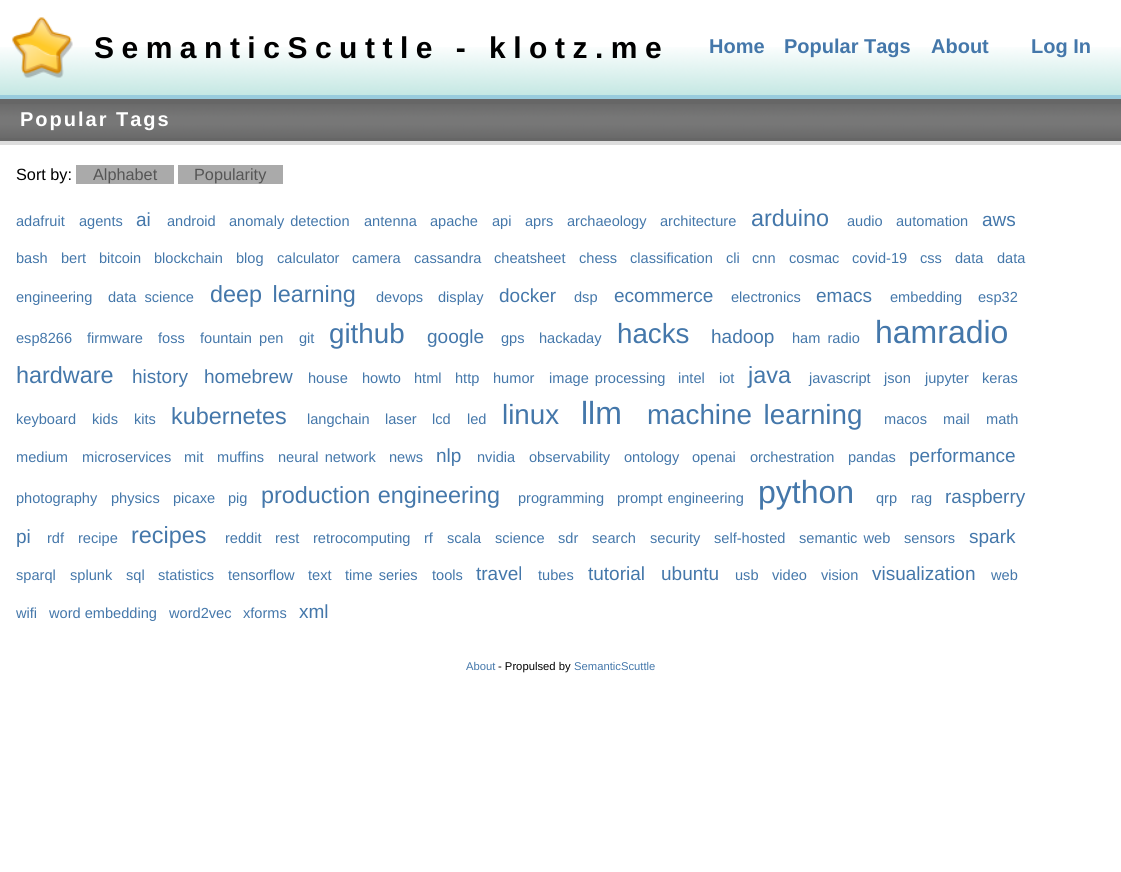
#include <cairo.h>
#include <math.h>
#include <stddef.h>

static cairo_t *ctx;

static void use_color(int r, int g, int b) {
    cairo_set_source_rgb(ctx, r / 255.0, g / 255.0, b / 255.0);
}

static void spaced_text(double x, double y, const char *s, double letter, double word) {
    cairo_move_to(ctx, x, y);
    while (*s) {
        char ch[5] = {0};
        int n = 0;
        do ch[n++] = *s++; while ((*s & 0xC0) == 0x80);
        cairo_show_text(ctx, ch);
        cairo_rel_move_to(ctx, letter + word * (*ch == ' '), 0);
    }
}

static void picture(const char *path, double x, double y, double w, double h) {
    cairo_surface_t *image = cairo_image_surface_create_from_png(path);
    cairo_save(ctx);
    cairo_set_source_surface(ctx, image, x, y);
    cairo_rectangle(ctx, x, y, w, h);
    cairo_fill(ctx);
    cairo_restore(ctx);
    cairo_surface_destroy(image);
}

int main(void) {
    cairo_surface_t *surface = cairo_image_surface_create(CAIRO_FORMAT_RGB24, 1121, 872);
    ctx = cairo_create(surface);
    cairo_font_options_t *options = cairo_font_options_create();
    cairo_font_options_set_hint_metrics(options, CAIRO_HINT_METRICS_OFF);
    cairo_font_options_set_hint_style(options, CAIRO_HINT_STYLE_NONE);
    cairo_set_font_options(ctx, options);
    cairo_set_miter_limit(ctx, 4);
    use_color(255, 255, 255);
    cairo_paint(ctx);
    picture("img1.png", 0, 47, 1121, 48);
    use_color(153, 204, 221);
    cairo_rectangle(ctx, 0, 95, 1121, 4);
    cairo_fill(ctx);
    picture("img2.png", 12, 17, 61, 61);
    cairo_select_font_face(ctx, "Liberation Sans", CAIRO_FONT_SLANT_NORMAL, CAIRO_FONT_WEIGHT_BOLD);
    cairo_set_font_size(ctx, 30);
    use_color(0, 0, 0);
    spaced_text(94, 58, "SemanticScuttle - klotz.me", 7.5, 0);
    cairo_set_font_size(ctx, 20);
    use_color(68, 119, 170);
    cairo_move_to(ctx, 709, 53);
    cairo_show_text(ctx, "Home");
    cairo_move_to(ctx, 784, 53);
    cairo_show_text(ctx, "Popular Tags");
    cairo_move_to(ctx, 931, 53);
    cairo_show_text(ctx, "About");
    cairo_move_to(ctx, 1031, 53);
    cairo_show_text(ctx, "Log In");
    use_color(102, 102, 102);
    cairo_rectangle(ctx, 0, 99, 1121, 42);
    cairo_fill(ctx);
    picture("img3.png", 0, 104, 1121, 34);
    use_color(221, 221, 221);
    cairo_rectangle(ctx, 0, 141, 1121, 4);
    cairo_fill(ctx);
    use_color(255, 255, 255);
    spaced_text(20, 126, "Popular Tags", 2, 0);
    cairo_select_font_face(ctx, "Liberation Sans", CAIRO_FONT_SLANT_NORMAL, CAIRO_FONT_WEIGHT_NORMAL);
    cairo_set_font_size(ctx, 16.25);
    use_color(0, 0, 0);
    cairo_move_to(ctx, 16, 180);
    cairo_show_text(ctx, "Sort by:");
    use_color(170, 170, 170);
    cairo_rectangle(ctx, 76, 165, 98, 19);
    cairo_fill(ctx);
    use_color(85, 85, 85);
    cairo_move_to(ctx, 93, 180);
    cairo_show_text(ctx, "Alphabet");
    use_color(170, 170, 170);
    cairo_rectangle(ctx, 178, 165, 105, 19);
    cairo_fill(ctx);
    use_color(85, 85, 85);
    cairo_move_to(ctx, 194, 180);
    cairo_show_text(ctx, "Popularity");
    cairo_set_font_size(ctx, 14.6);
    use_color(68, 119, 170);
    cairo_move_to(ctx, 16, 226);
    cairo_show_text(ctx, "adafruit");
    cairo_move_to(ctx, 79, 226);
    cairo_show_text(ctx, "agents");
    cairo_set_font_size(ctx, 19);
    cairo_move_to(ctx, 136, 226);
    cairo_show_text(ctx, "ai");
    cairo_set_font_size(ctx, 14.6);
    cairo_move_to(ctx, 167, 226);
    cairo_show_text(ctx, "android");
    spaced_text(229, 226, "anomaly detection", 0, 2);
    cairo_move_to(ctx, 364, 226);
    cairo_show_text(ctx, "antenna");
    cairo_move_to(ctx, 430, 226);
    cairo_show_text(ctx, "apache");
    cairo_move_to(ctx, 492, 226);
    cairo_show_text(ctx, "api");
    cairo_move_to(ctx, 525, 226);
    cairo_show_text(ctx, "aprs");
    cairo_move_to(ctx, 567, 226);
    cairo_show_text(ctx, "archaeology");
    cairo_move_to(ctx, 660, 226);
    cairo_show_text(ctx, "architecture");
    cairo_set_font_size(ctx, 23.4);
    cairo_move_to(ctx, 751, 226);
    cairo_show_text(ctx, "arduino");
    cairo_set_font_size(ctx, 14.6);
    cairo_move_to(ctx, 847, 226);
    cairo_show_text(ctx, "audio");
    cairo_move_to(ctx, 896, 226);
    cairo_show_text(ctx, "automation");
    cairo_set_font_size(ctx, 19);
    cairo_move_to(ctx, 982, 226);
    cairo_show_text(ctx, "aws");
    cairo_set_font_size(ctx, 14.6);
    cairo_move_to(ctx, 16, 263);
    cairo_show_text(ctx, "bash");
    cairo_move_to(ctx, 61, 263);
    cairo_show_text(ctx, "bert");
    cairo_move_to(ctx, 99, 263);
    cairo_show_text(ctx, "bitcoin");
    cairo_move_to(ctx, 154, 263);
    cairo_show_text(ctx, "blockchain");
    cairo_move_to(ctx, 236, 263);
    cairo_show_text(ctx, "blog");
    cairo_move_to(ctx, 277, 263);
    cairo_show_text(ctx, "calculator");
    cairo_move_to(ctx, 352, 263);
    cairo_show_text(ctx, "camera");
    cairo_move_to(ctx, 414, 263);
    cairo_show_text(ctx, "cassandra");
    cairo_move_to(ctx, 494, 263);
    cairo_show_text(ctx, "cheatsheet");
    cairo_move_to(ctx, 579, 263);
    cairo_show_text(ctx, "chess");
    cairo_move_to(ctx, 630, 263);
    cairo_show_text(ctx, "classification");
    cairo_move_to(ctx, 726, 263);
    cairo_show_text(ctx, "cli");
    cairo_move_to(ctx, 752, 263);
    cairo_show_text(ctx, "cnn");
    cairo_move_to(ctx, 789, 263);
    cairo_show_text(ctx, "cosmac");
    cairo_move_to(ctx, 852, 263);
    cairo_show_text(ctx, "covid-19");
    cairo_move_to(ctx, 920, 263);
    cairo_show_text(ctx, "css");
    cairo_move_to(ctx, 955, 263);
    cairo_show_text(ctx, "data");
    cairo_move_to(ctx, 997, 263);
    cairo_show_text(ctx, "data");
    cairo_move_to(ctx, 16, 302);
    cairo_show_text(ctx, "engineering");
    spaced_text(108, 302, "data science", 0, 4);
    cairo_set_font_size(ctx, 23.4);
    spaced_text(210, 302, "deep learning", 0, 4);
    cairo_set_font_size(ctx, 14.6);
    cairo_move_to(ctx, 376, 302);
    cairo_show_text(ctx, "devops");
    cairo_move_to(ctx, 438, 302);
    cairo_show_text(ctx, "display");
    cairo_set_font_size(ctx, 19);
    cairo_move_to(ctx, 499, 302);
    cairo_show_text(ctx, "docker");
    cairo_set_font_size(ctx, 14.6);
    cairo_move_to(ctx, 574, 302);
    cairo_show_text(ctx, "dsp");
    cairo_set_font_size(ctx, 19);
    cairo_move_to(ctx, 614, 302);
    cairo_show_text(ctx, "ecommerce");
    cairo_set_font_size(ctx, 14.6);
    cairo_move_to(ctx, 731, 302);
    cairo_show_text(ctx, "electronics");
    cairo_set_font_size(ctx, 19);
    cairo_move_to(ctx, 816, 302);
    cairo_show_text(ctx, "emacs");
    cairo_set_font_size(ctx, 14.6);
    cairo_move_to(ctx, 890, 302);
    cairo_show_text(ctx, "embedding");
    cairo_move_to(ctx, 978, 302);
    cairo_show_text(ctx, "esp32");
    cairo_move_to(ctx, 16, 343);
    cairo_show_text(ctx, "esp8266");
    cairo_move_to(ctx, 87, 343);
    cairo_show_text(ctx, "firmware");
    cairo_move_to(ctx, 158, 343);
    cairo_show_text(ctx, "foss");
    spaced_text(200, 343, "fountain pen", 0, 3);
    cairo_move_to(ctx, 299, 343);
    cairo_show_text(ctx, "git");
    cairo_set_font_size(ctx, 27.75);
    cairo_move_to(ctx, 329, 343);
    cairo_show_text(ctx, "github");
    cairo_set_font_size(ctx, 19);
    cairo_move_to(ctx, 427, 343);
    cairo_show_text(ctx, "google");
    cairo_set_font_size(ctx, 14.6);
    cairo_move_to(ctx, 501, 343);
    cairo_show_text(ctx, "gps");
    cairo_move_to(ctx, 539, 343);
    cairo_show_text(ctx, "hackaday");
    cairo_set_font_size(ctx, 27.75);
    cairo_move_to(ctx, 617, 343);
    cairo_show_text(ctx, "hacks");
    cairo_set_font_size(ctx, 19);
    cairo_move_to(ctx, 711, 343);
    cairo_show_text(ctx, "hadoop");
    cairo_set_font_size(ctx, 14.6);
    spaced_text(792, 343, "ham radio", 0, 3);
    cairo_set_font_size(ctx, 32);
    cairo_move_to(ctx, 875, 343);
    cairo_show_text(ctx, "hamradio");
    cairo_set_font_size(ctx, 23.4);
    cairo_move_to(ctx, 16, 383);
    cairo_show_text(ctx, "hardware");
    cairo_set_font_size(ctx, 19);
    cairo_move_to(ctx, 132, 383);
    cairo_show_text(ctx, "history");
    cairo_move_to(ctx, 204, 383);
    cairo_show_text(ctx, "homebrew");
    cairo_set_font_size(ctx, 14.6);
    cairo_move_to(ctx, 308, 383);
    cairo_show_text(ctx, "house");
    cairo_move_to(ctx, 362, 383);
    cairo_show_text(ctx, "howto");
    cairo_move_to(ctx, 414, 383);
    cairo_show_text(ctx, "html");
    cairo_move_to(ctx, 455, 383);
    cairo_show_text(ctx, "http");
    cairo_move_to(ctx, 493, 383);
    cairo_show_text(ctx, "humor");
    spaced_text(549, 383, "image processing", 0, 2);
    cairo_move_to(ctx, 678, 383);
    cairo_show_text(ctx, "intel");
    cairo_move_to(ctx, 719, 383);
    cairo_show_text(ctx, "iot");
    cairo_set_font_size(ctx, 23.4);
    cairo_move_to(ctx, 748, 383);
    cairo_show_text(ctx, "java");
    cairo_set_font_size(ctx, 14.6);
    cairo_move_to(ctx, 809, 383);
    cairo_show_text(ctx, "javascript");
    cairo_move_to(ctx, 884, 383);
    cairo_show_text(ctx, "json");
    cairo_move_to(ctx, 925, 383);
    cairo_show_text(ctx, "jupyter");
    cairo_move_to(ctx, 982, 383);
    cairo_show_text(ctx, "keras");
    cairo_move_to(ctx, 16, 424);
    cairo_show_text(ctx, "keyboard");
    cairo_move_to(ctx, 92, 424);
    cairo_show_text(ctx, "kids");
    cairo_move_to(ctx, 134, 424);
    cairo_show_text(ctx, "kits");
    cairo_set_font_size(ctx, 23.4);
    cairo_move_to(ctx, 171, 424);
    cairo_show_text(ctx, "kubernetes");
    cairo_set_font_size(ctx, 14.6);
    cairo_move_to(ctx, 307, 424);
    cairo_show_text(ctx, "langchain");
    cairo_move_to(ctx, 385, 424);
    cairo_show_text(ctx, "laser");
    cairo_move_to(ctx, 432, 424);
    cairo_show_text(ctx, "lcd");
    cairo_move_to(ctx, 467, 424);
    cairo_show_text(ctx, "led");
    cairo_set_font_size(ctx, 27.75);
    cairo_move_to(ctx, 502, 424);
    cairo_show_text(ctx, "linux");
    cairo_set_font_size(ctx, 32);
    cairo_move_to(ctx, 581, 424);
    cairo_show_text(ctx, "llm");
    cairo_set_font_size(ctx, 27.75);
    spaced_text(647, 424, "machine learning", 0, 4);
    cairo_set_font_size(ctx, 14.6);
    cairo_move_to(ctx, 884, 424);
    cairo_show_text(ctx, "macos");
    cairo_move_to(ctx, 943, 424);
    cairo_show_text(ctx, "mail");
    cairo_move_to(ctx, 986, 424);
    cairo_show_text(ctx, "math");
    cairo_move_to(ctx, 16, 462);
    cairo_show_text(ctx, "medium");
    cairo_move_to(ctx, 82, 462);
    cairo_show_text(ctx, "microservices");
    cairo_move_to(ctx, 184, 462);
    cairo_show_text(ctx, "mit");
    cairo_move_to(ctx, 217, 462);
    cairo_show_text(ctx, "muffins");
    spaced_text(278, 462, "neural network", 0, 2);
    cairo_move_to(ctx, 389, 462);
    cairo_show_text(ctx, "news");
    cairo_set_font_size(ctx, 19);
    cairo_move_to(ctx, 436, 462);
    cairo_show_text(ctx, "nlp");
    cairo_set_font_size(ctx, 14.6);
    cairo_move_to(ctx, 477, 462);
    cairo_show_text(ctx, "nvidia");
    cairo_move_to(ctx, 529, 462);
    cairo_show_text(ctx, "observability");
    cairo_move_to(ctx, 624, 462);
    cairo_show_text(ctx, "ontology");
    cairo_move_to(ctx, 692, 462);
    cairo_show_text(ctx, "openai");
    cairo_move_to(ctx, 750, 462);
    cairo_show_text(ctx, "orchestration");
    cairo_move_to(ctx, 848, 462);
    cairo_show_text(ctx, "pandas");
    cairo_set_font_size(ctx, 19);
    cairo_move_to(ctx, 909, 462);
    cairo_show_text(ctx, "performance");
    cairo_set_font_size(ctx, 14.6);
    cairo_move_to(ctx, 16, 503);
    cairo_show_text(ctx, "photography");
    cairo_move_to(ctx, 111, 503);
    cairo_show_text(ctx, "physics");
    cairo_move_to(ctx, 173, 503);
    cairo_show_text(ctx, "picaxe");
    cairo_move_to(ctx, 228, 503);
    cairo_show_text(ctx, "pig");
    cairo_set_font_size(ctx, 23.4);
    spaced_text(261, 503, "production engineering", 0, 1);
    cairo_set_font_size(ctx, 14.6);
    cairo_move_to(ctx, 518, 503);
    cairo_show_text(ctx, "programming");
    spaced_text(617, 503, "prompt engineering", 0, 1);
    cairo_set_font_size(ctx, 32);
    cairo_move_to(ctx, 758, 503);
    cairo_show_text(ctx, "python");
    cairo_set_font_size(ctx, 14.6);
    cairo_move_to(ctx, 876, 503);
    cairo_show_text(ctx, "qrp");
    cairo_move_to(ctx, 911, 503);
    cairo_show_text(ctx, "rag");
    cairo_set_font_size(ctx, 19);
    cairo_move_to(ctx, 945, 503);
    cairo_show_text(ctx, "raspberry");
    cairo_move_to(ctx, 16, 543);
    cairo_show_text(ctx, "pi");
    cairo_set_font_size(ctx, 14.6);
    cairo_move_to(ctx, 47, 543);
    cairo_show_text(ctx, "rdf");
    cairo_move_to(ctx, 78, 543);
    cairo_show_text(ctx, "recipe");
    cairo_set_font_size(ctx, 23.4);
    cairo_move_to(ctx, 131, 543);
    cairo_show_text(ctx, "recipes");
    cairo_set_font_size(ctx, 14.6);
    cairo_move_to(ctx, 225, 543);
    cairo_show_text(ctx, "reddit");
    cairo_move_to(ctx, 275, 543);
    cairo_show_text(ctx, "rest");
    cairo_move_to(ctx, 313, 543);
    cairo_show_text(ctx, "retrocomputing");
    cairo_move_to(ctx, 424, 543);
    cairo_show_text(ctx, "rf");
    cairo_move_to(ctx, 447, 543);
    cairo_show_text(ctx, "scala");
    cairo_move_to(ctx, 495, 543);
    cairo_show_text(ctx, "science");
    cairo_move_to(ctx, 558, 543);
    cairo_show_text(ctx, "sdr");
    cairo_move_to(ctx, 592, 543);
    cairo_show_text(ctx, "search");
    cairo_move_to(ctx, 650, 543);
    cairo_show_text(ctx, "security");
    cairo_move_to(ctx, 714, 543);
    cairo_show_text(ctx, "self-hosted");
    spaced_text(799, 543, "semantic web", 0, 2);
    cairo_move_to(ctx, 904, 543);
    cairo_show_text(ctx, "sensors");
    cairo_set_font_size(ctx, 19);
    cairo_move_to(ctx, 969, 543);
    cairo_show_text(ctx, "spark");
    cairo_set_font_size(ctx, 14.6);
    cairo_move_to(ctx, 16, 580);
    cairo_show_text(ctx, "sparql");
    cairo_move_to(ctx, 70, 580);
    cairo_show_text(ctx, "splunk");
    cairo_move_to(ctx, 126, 580);
    cairo_show_text(ctx, "sql");
    cairo_move_to(ctx, 158, 580);
    cairo_show_text(ctx, "statistics");
    cairo_move_to(ctx, 228, 580);
    cairo_show_text(ctx, "tensorflow");
    cairo_move_to(ctx, 308, 580);
    cairo_show_text(ctx, "text");
    spaced_text(345, 580, "time series", 0, 2);
    cairo_move_to(ctx, 432, 580);
    cairo_show_text(ctx, "tools");
    cairo_set_font_size(ctx, 19);
    cairo_move_to(ctx, 476, 580);
    cairo_show_text(ctx, "travel");
    cairo_set_font_size(ctx, 14.6);
    cairo_move_to(ctx, 538, 580);
    cairo_show_text(ctx, "tubes");
    cairo_set_font_size(ctx, 19);
    cairo_move_to(ctx, 588, 580);
    cairo_show_text(ctx, "tutorial");
    cairo_move_to(ctx, 661, 580);
    cairo_show_text(ctx, "ubuntu");
    cairo_set_font_size(ctx, 14.6);
    cairo_move_to(ctx, 735, 580);
    cairo_show_text(ctx, "usb");
    cairo_move_to(ctx, 772, 580);
    cairo_show_text(ctx, "video");
    cairo_move_to(ctx, 821, 580);
    cairo_show_text(ctx, "vision");
    cairo_set_font_size(ctx, 19);
    cairo_move_to(ctx, 872, 580);
    cairo_show_text(ctx, "visualization");
    cairo_set_font_size(ctx, 14.6);
    cairo_move_to(ctx, 991, 580);
    cairo_show_text(ctx, "web");
    cairo_move_to(ctx, 16, 618);
    cairo_show_text(ctx, "wifi");
    cairo_move_to(ctx, 49, 618);
    cairo_show_text(ctx, "word embedding");
    cairo_move_to(ctx, 169, 618);
    cairo_show_text(ctx, "word2vec");
    cairo_move_to(ctx, 243, 618);
    cairo_show_text(ctx, "xforms");
    cairo_set_font_size(ctx, 19);
    cairo_move_to(ctx, 299, 618);
    cairo_show_text(ctx, "xml");
    cairo_set_font_size(ctx, 11.25);
    cairo_move_to(ctx, 466, 670);
    cairo_show_text(ctx, "About");
    use_color(0, 0, 0);
    cairo_move_to(ctx, 498, 670);
    cairo_show_text(ctx, "- Propulsed by");
    use_color(68, 119, 170);
    cairo_move_to(ctx, 574, 670);
    cairo_show_text(ctx, "SemanticScuttle");
    cairo_surface_write_to_png(surface, "result.png");
    cairo_font_options_destroy(options);
    cairo_destroy(ctx);
    cairo_surface_destroy(surface);
    return 0;
}
